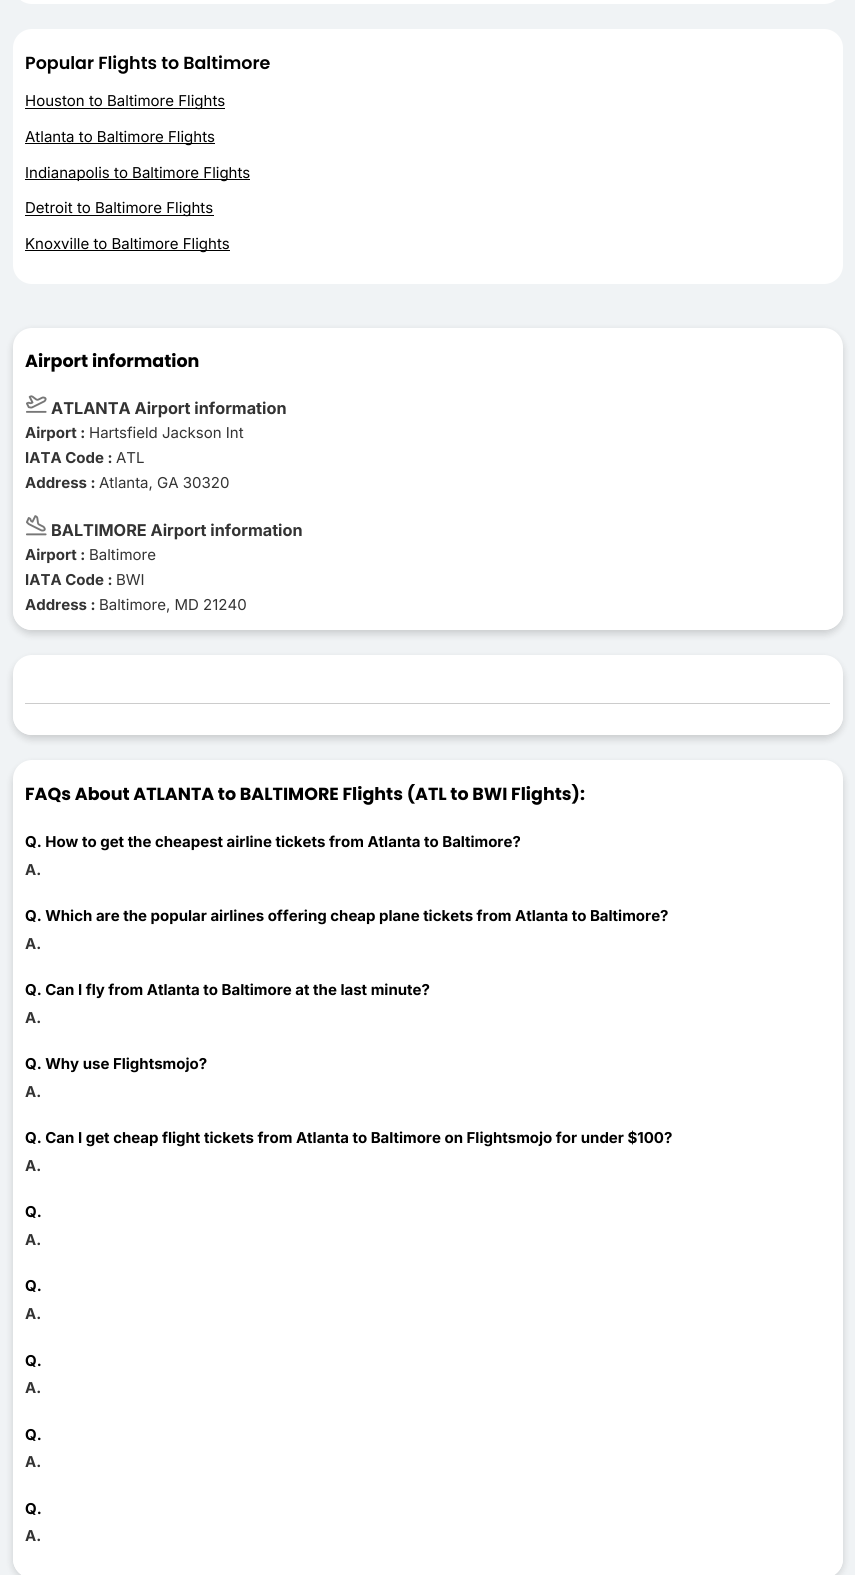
#include <cairo.h>
#include <math.h>
#include <stddef.h>

static cairo_t *ctx;

static void use_color(int r, int g, int b) {
    cairo_set_source_rgb(ctx, r / 255.0, g / 255.0, b / 255.0);
}

static void round_rect(double x, double y, double w, double h, double r) {
    cairo_new_sub_path(ctx);
    cairo_arc(ctx, x + w - r, y + h - r, r, 0, M_PI / 2);
    cairo_arc(ctx, x + r, y + h - r, r, M_PI / 2, M_PI);
    cairo_arc(ctx, x + r, y + r, r, M_PI, 1.5 * M_PI);
    cairo_arc(ctx, x + w - r, y + r, r, 1.5 * M_PI, 2 * M_PI);
    cairo_close_path(ctx);
}

static void shadow(double x, double y, double w, double h, double r, double blur, double alpha) {
    cairo_push_group_with_content(ctx, CAIRO_CONTENT_ALPHA);
    cairo_set_operator(ctx, CAIRO_OPERATOR_SOURCE);
    for (int i = 15; i >= -15 && fmin(w, h) + blur * i / 3 > 0; i -= 2) {
        double e = blur * i / 6;
        cairo_set_source_rgba(ctx, 0, 0, 0, alpha * erfc((i - 1) / 8.5) / 2);
        round_rect(x - e, y - e, w + 2 * e, h + 2 * e, fmax(0, fmin(r + e + blur * .6, fmin(w, h) / 2 + e)));
        cairo_fill(ctx);
    }
    cairo_pattern_t *soft = cairo_pop_group(ctx);
    cairo_mask(ctx, soft);
    cairo_pattern_destroy(soft);
}

static void picture(const char *path, double x, double y, double w, double h) {
    cairo_surface_t *image = cairo_image_surface_create_from_png(path);
    cairo_save(ctx);
    cairo_set_source_surface(ctx, image, x, y);
    cairo_rectangle(ctx, x, y, w, h);
    cairo_fill(ctx);
    cairo_restore(ctx);
    cairo_surface_destroy(image);
}

int main(void) {
    cairo_surface_t *surface = cairo_image_surface_create(CAIRO_FORMAT_RGB24, 855, 1575);
    ctx = cairo_create(surface);
    cairo_font_options_t *options = cairo_font_options_create();
    cairo_font_options_set_hint_metrics(options, CAIRO_HINT_METRICS_OFF);
    cairo_font_options_set_hint_style(options, CAIRO_HINT_STYLE_NONE);
    cairo_set_font_options(ctx, options);
    cairo_set_miter_limit(ctx, 4);
    use_color(240, 243, 245);
    cairo_paint(ctx);
    use_color(255, 255, 255);
    round_rect(13, -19, 830, 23, 19);
    cairo_fill(ctx);
    round_rect(13, 29, 830, 255, 19);
    cairo_fill(ctx);
    cairo_select_font_face(ctx, "Poppins SemiBold", CAIRO_FONT_SLANT_NORMAL, CAIRO_FONT_WEIGHT_NORMAL);
    cairo_set_font_size(ctx, 17.5);
    use_color(0, 0, 0);
    cairo_move_to(ctx, 25, 69);
    cairo_show_text(ctx, "Popular Flights to Baltimore");
    cairo_rectangle(ctx, 25, 108, 200, 1);
    cairo_fill(ctx);
    cairo_select_font_face(ctx, "Inter", CAIRO_FONT_SLANT_NORMAL, CAIRO_FONT_WEIGHT_NORMAL);
    cairo_set_font_size(ctx, 15);
    cairo_move_to(ctx, 25, 106);
    cairo_show_text(ctx, "Houston to Baltimore Flights");
    cairo_rectangle(ctx, 25, 143, 190, 1);
    cairo_fill(ctx);
    cairo_move_to(ctx, 25, 142);
    cairo_show_text(ctx, "Atlanta to Baltimore Flights");
    cairo_rectangle(ctx, 25, 179, 225, 1);
    cairo_fill(ctx);
    cairo_move_to(ctx, 25, 178);
    cairo_show_text(ctx, "Indianapolis to Baltimore Flights");
    cairo_rectangle(ctx, 25, 215, 189, 1);
    cairo_fill(ctx);
    cairo_move_to(ctx, 25, 213);
    cairo_show_text(ctx, "Detroit to Baltimore Flights");
    cairo_rectangle(ctx, 25, 250, 205, 1);
    cairo_fill(ctx);
    cairo_move_to(ctx, 25, 249);
    cairo_show_text(ctx, "Knoxville to Baltimore Flights");
    use_color(0, 0, 0);
    shadow(13, 331, 830, 303, 19, 4, 0.16);
    use_color(255, 255, 255);
    round_rect(13, 328, 830, 302, 19);
    cairo_fill(ctx);
    cairo_select_font_face(ctx, "Poppins", CAIRO_FONT_SLANT_NORMAL, CAIRO_FONT_WEIGHT_BOLD);
    cairo_set_font_size(ctx, 17.5);
    use_color(0, 0, 0);
    cairo_move_to(ctx, 25, 367);
    cairo_show_text(ctx, "Airport information");
    use_color(255, 255, 255);
    round_rect(13, 379, 830, 251, 19);
    cairo_fill(ctx);
    picture("img1.png", 26, 395, 21, 18);
    cairo_select_font_face(ctx, "Inter", CAIRO_FONT_SLANT_NORMAL, CAIRO_FONT_WEIGHT_BOLD);
    cairo_set_font_size(ctx, 16.25);
    use_color(51, 51, 51);
    cairo_move_to(ctx, 51, 414);
    cairo_show_text(ctx, "ATLANTA Airport information");
    cairo_set_font_size(ctx, 15);
    cairo_move_to(ctx, 25, 438);
    cairo_show_text(ctx, "Airport :");
    cairo_select_font_face(ctx, "Inter", CAIRO_FONT_SLANT_NORMAL, CAIRO_FONT_WEIGHT_NORMAL);
    cairo_move_to(ctx, 89, 438);
    cairo_show_text(ctx, "Hartsfield Jackson Int");
    cairo_select_font_face(ctx, "Inter", CAIRO_FONT_SLANT_NORMAL, CAIRO_FONT_WEIGHT_BOLD);
    cairo_move_to(ctx, 25, 463);
    cairo_show_text(ctx, "IATA Code :");
    cairo_select_font_face(ctx, "Inter", CAIRO_FONT_SLANT_NORMAL, CAIRO_FONT_WEIGHT_NORMAL);
    cairo_move_to(ctx, 116, 463);
    cairo_show_text(ctx, "ATL");
    cairo_select_font_face(ctx, "Inter", CAIRO_FONT_SLANT_NORMAL, CAIRO_FONT_WEIGHT_BOLD);
    cairo_move_to(ctx, 25, 488);
    cairo_show_text(ctx, "Address :");
    cairo_select_font_face(ctx, "Inter", CAIRO_FONT_SLANT_NORMAL, CAIRO_FONT_WEIGHT_NORMAL);
    cairo_move_to(ctx, 99, 488);
    cairo_show_text(ctx, "Atlanta, GA 30320");
    picture("img2.png", 26, 515, 21, 21);
    cairo_select_font_face(ctx, "Inter", CAIRO_FONT_SLANT_NORMAL, CAIRO_FONT_WEIGHT_BOLD);
    cairo_set_font_size(ctx, 16.25);
    cairo_move_to(ctx, 51, 536);
    cairo_show_text(ctx, "BALTIMORE Airport information");
    cairo_set_font_size(ctx, 15);
    cairo_move_to(ctx, 25, 560);
    cairo_show_text(ctx, "Airport :");
    cairo_select_font_face(ctx, "Inter", CAIRO_FONT_SLANT_NORMAL, CAIRO_FONT_WEIGHT_NORMAL);
    cairo_move_to(ctx, 89, 560);
    cairo_show_text(ctx, "Baltimore");
    cairo_select_font_face(ctx, "Inter", CAIRO_FONT_SLANT_NORMAL, CAIRO_FONT_WEIGHT_BOLD);
    cairo_move_to(ctx, 25, 585);
    cairo_show_text(ctx, "IATA Code :");
    cairo_select_font_face(ctx, "Inter", CAIRO_FONT_SLANT_NORMAL, CAIRO_FONT_WEIGHT_NORMAL);
    cairo_move_to(ctx, 116, 585);
    cairo_show_text(ctx, "BWI");
    cairo_select_font_face(ctx, "Inter", CAIRO_FONT_SLANT_NORMAL, CAIRO_FONT_WEIGHT_BOLD);
    cairo_move_to(ctx, 25, 610);
    cairo_show_text(ctx, "Address :");
    cairo_select_font_face(ctx, "Inter", CAIRO_FONT_SLANT_NORMAL, CAIRO_FONT_WEIGHT_NORMAL);
    cairo_move_to(ctx, 99, 610);
    cairo_show_text(ctx, "Baltimore, MD 21240");
    use_color(0, 0, 0);
    shadow(13, 659, 830, 80, 19, 4, 0.16);
    use_color(255, 255, 255);
    round_rect(13, 655, 830, 80, 19);
    cairo_fill(ctx);
    round_rect(13, 680, 830, 55, 19);
    cairo_fill(ctx);
    use_color(204, 204, 204);
    cairo_rectangle(ctx, 25, 703, 805, 1);
    cairo_fill(ctx);
    use_color(0, 0, 0);
    shadow(13, 764, 830, 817, 19, 4, 0.16);
    use_color(255, 255, 255);
    round_rect(13, 760, 830, 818, 19);
    cairo_fill(ctx);
    cairo_select_font_face(ctx, "Poppins", CAIRO_FONT_SLANT_NORMAL, CAIRO_FONT_WEIGHT_BOLD);
    cairo_set_font_size(ctx, 17.5);
    use_color(0, 0, 0);
    cairo_move_to(ctx, 25, 800);
    cairo_show_text(ctx, "FAQs About ATLANTA to BALTIMORE Flights (ATL to BWI Flights):");
    use_color(255, 255, 255);
    round_rect(13, 811, 830, 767, 19);
    cairo_fill(ctx);
    cairo_select_font_face(ctx, "Inter", CAIRO_FONT_SLANT_NORMAL, CAIRO_FONT_WEIGHT_BOLD);
    cairo_set_font_size(ctx, 15);
    use_color(0, 0, 0);
    cairo_move_to(ctx, 25, 847);
    cairo_show_text(ctx, "Q. How to get the cheapest airline tickets from Atlanta to Baltimore?");
    use_color(51, 51, 51);
    cairo_move_to(ctx, 25, 875);
    cairo_show_text(ctx, "A.");
    use_color(0, 0, 0);
    cairo_move_to(ctx, 25, 921);
    cairo_show_text(ctx, "Q. Which are the popular airlines offering cheap plane tickets from Atlanta to Baltimore?");
    use_color(51, 51, 51);
    cairo_move_to(ctx, 25, 949);
    cairo_show_text(ctx, "A.");
    use_color(0, 0, 0);
    cairo_move_to(ctx, 25, 995);
    cairo_show_text(ctx, "Q. Can I fly from Atlanta to Baltimore at the last minute?");
    use_color(51, 51, 51);
    cairo_move_to(ctx, 25, 1023);
    cairo_show_text(ctx, "A.");
    use_color(0, 0, 0);
    cairo_move_to(ctx, 25, 1069);
    cairo_show_text(ctx, "Q. Why use Flightsmojo?");
    use_color(51, 51, 51);
    cairo_move_to(ctx, 25, 1097);
    cairo_show_text(ctx, "A.");
    use_color(0, 0, 0);
    cairo_move_to(ctx, 25, 1143);
    cairo_show_text(ctx, "Q. Can I get cheap flight tickets from Atlanta to Baltimore on Flightsmojo for under $100?");
    use_color(51, 51, 51);
    cairo_move_to(ctx, 25, 1171);
    cairo_show_text(ctx, "A.");
    use_color(0, 0, 0);
    cairo_move_to(ctx, 25, 1217);
    cairo_show_text(ctx, "Q.");
    use_color(51, 51, 51);
    cairo_move_to(ctx, 25, 1245);
    cairo_show_text(ctx, "A.");
    use_color(0, 0, 0);
    cairo_move_to(ctx, 25, 1291);
    cairo_show_text(ctx, "Q.");
    use_color(51, 51, 51);
    cairo_move_to(ctx, 25, 1319);
    cairo_show_text(ctx, "A.");
    use_color(0, 0, 0);
    cairo_move_to(ctx, 25, 1366);
    cairo_show_text(ctx, "Q.");
    use_color(51, 51, 51);
    cairo_move_to(ctx, 25, 1393);
    cairo_show_text(ctx, "A.");
    use_color(0, 0, 0);
    cairo_move_to(ctx, 25, 1440);
    cairo_show_text(ctx, "Q.");
    use_color(51, 51, 51);
    cairo_move_to(ctx, 25, 1467);
    cairo_show_text(ctx, "A.");
    use_color(0, 0, 0);
    cairo_move_to(ctx, 25, 1514);
    cairo_show_text(ctx, "Q.");
    use_color(51, 51, 51);
    cairo_move_to(ctx, 25, 1541);
    cairo_show_text(ctx, "A.");
    cairo_surface_write_to_png(surface, "result.png");
    cairo_font_options_destroy(options);
    cairo_destroy(ctx);
    cairo_surface_destroy(surface);
    return 0;
}
